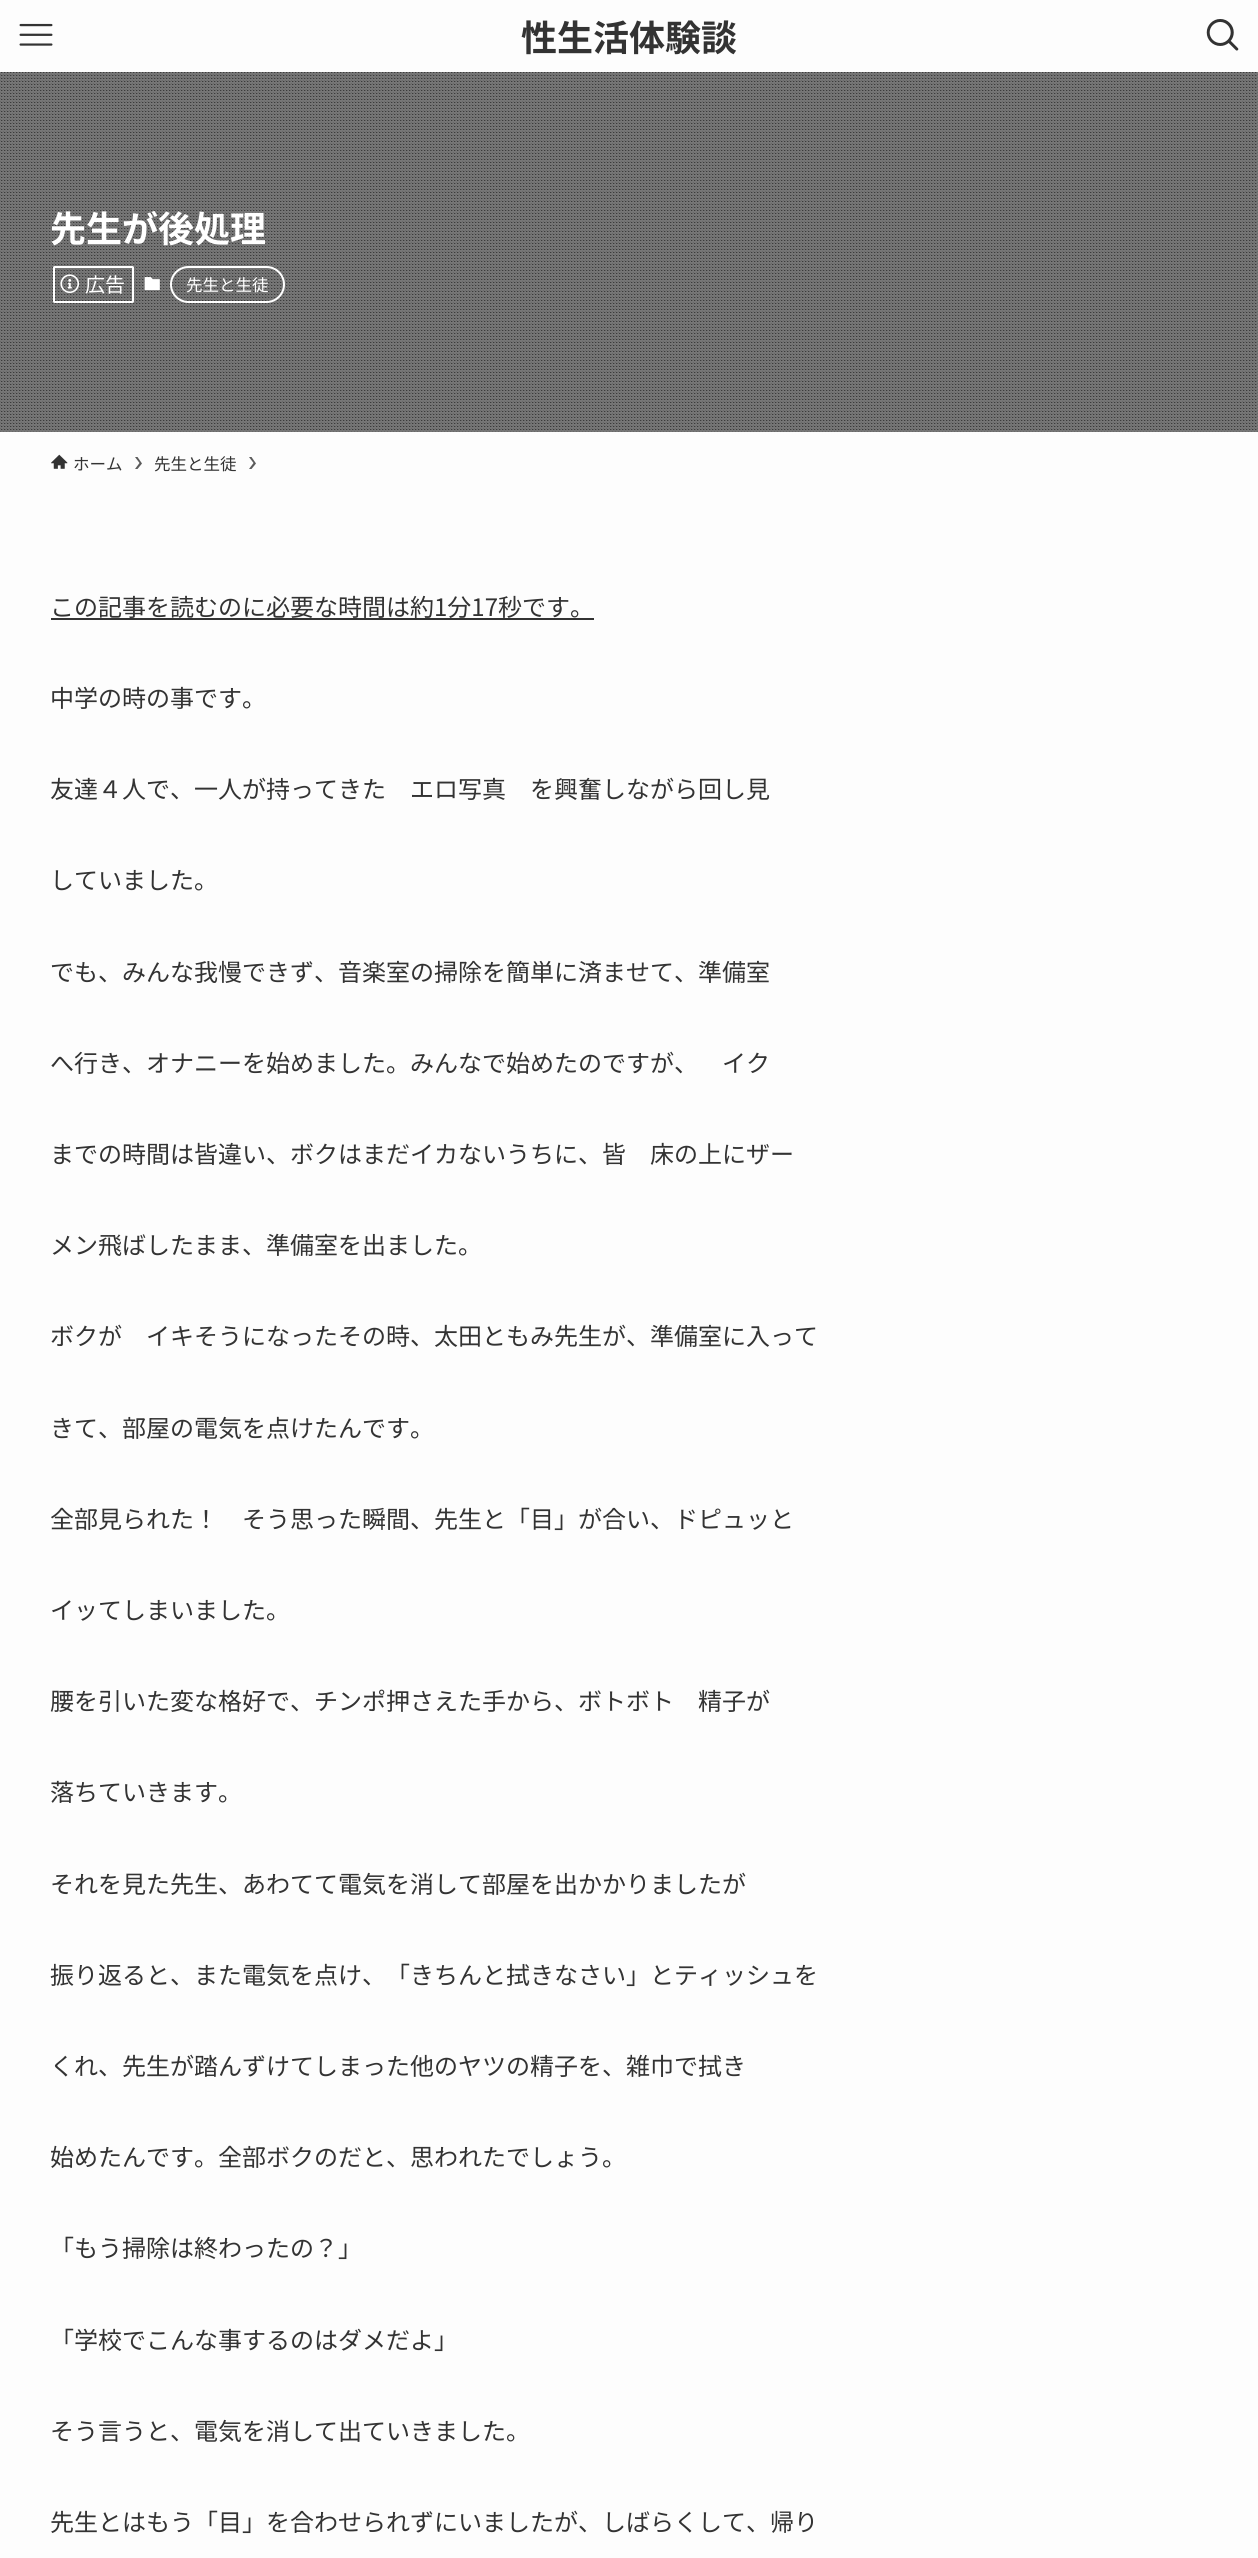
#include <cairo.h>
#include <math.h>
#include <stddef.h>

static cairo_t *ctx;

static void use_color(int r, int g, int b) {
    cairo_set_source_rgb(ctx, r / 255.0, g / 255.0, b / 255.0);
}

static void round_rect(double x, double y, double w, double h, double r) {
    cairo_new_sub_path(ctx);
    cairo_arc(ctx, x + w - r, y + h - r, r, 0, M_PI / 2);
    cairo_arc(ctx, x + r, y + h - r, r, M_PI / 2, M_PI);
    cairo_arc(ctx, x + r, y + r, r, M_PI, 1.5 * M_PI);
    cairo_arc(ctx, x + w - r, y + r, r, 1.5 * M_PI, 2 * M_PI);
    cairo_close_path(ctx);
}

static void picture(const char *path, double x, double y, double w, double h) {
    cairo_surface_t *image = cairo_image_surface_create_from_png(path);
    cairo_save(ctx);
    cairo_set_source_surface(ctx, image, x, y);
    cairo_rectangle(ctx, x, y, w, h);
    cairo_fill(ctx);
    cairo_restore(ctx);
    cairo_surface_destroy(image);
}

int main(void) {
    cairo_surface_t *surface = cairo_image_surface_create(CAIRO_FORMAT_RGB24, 1258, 2558);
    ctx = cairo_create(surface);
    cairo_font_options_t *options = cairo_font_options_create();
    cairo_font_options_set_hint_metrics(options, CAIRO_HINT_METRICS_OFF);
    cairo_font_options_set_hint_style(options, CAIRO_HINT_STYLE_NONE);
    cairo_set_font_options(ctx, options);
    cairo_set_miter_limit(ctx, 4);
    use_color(253, 253, 253);
    cairo_paint(ctx);
    picture("img1.png", 19, 23, 34, 23);
    cairo_select_font_face(ctx, "Noto Sans JP", CAIRO_FONT_SLANT_NORMAL, CAIRO_FONT_WEIGHT_BOLD);
    cairo_set_font_size(ctx, 36);
    use_color(51, 51, 51);
    cairo_move_to(ctx, 521, 51);
    cairo_show_text(ctx, "性生活体験談");
    picture("img2.png", 1206, 19, 33, 32);
    use_color(118, 118, 118);
    cairo_rectangle(ctx, 0, 72, 1258, 360);
    cairo_fill(ctx);
    picture("img3.png", 0, 72, 1258, 360);
    use_color(255, 255, 255);
    cairo_move_to(ctx, 50, 242);
    cairo_show_text(ctx, "先生が後処理");
    round_rect(54, 267, 79, 35, 0.5);
    cairo_stroke(ctx);
    picture("img4.png", 60, 274, 20, 20);
    cairo_select_font_face(ctx, "Noto Sans JP", CAIRO_FONT_SLANT_NORMAL, CAIRO_FONT_WEIGHT_NORMAL);
    cairo_set_font_size(ctx, 20);
    cairo_move_to(ctx, 85, 292);
    cairo_show_text(ctx, "広告");
    picture("img5.png", 144, 277, 16, 14);
    round_rect(171, 267, 113, 35, 17.5);
    cairo_stroke(ctx);
    cairo_set_font_size(ctx, 16.5);
    cairo_move_to(ctx, 186, 291);
    cairo_show_text(ctx, "先生と生徒");
    picture("img6.png", 51, 454, 17, 15);
    use_color(51, 51, 51);
    cairo_move_to(ctx, 73, 470);
    cairo_show_text(ctx, "ホーム");
    use_color(91, 91, 91);
    cairo_new_path(ctx);
    cairo_move_to(ctx, 137.5, 457);
    cairo_line_to(ctx, 135, 457);
    cairo_line_to(ctx, 139.5, 463);
    cairo_line_to(ctx, 135, 469);
    cairo_line_to(ctx, 137.5, 469);
    cairo_line_to(ctx, 142, 463.5);
    cairo_close_path(ctx);
    cairo_fill(ctx);
    use_color(51, 51, 51);
    cairo_move_to(ctx, 154, 470);
    cairo_show_text(ctx, "先生と生徒");
    use_color(91, 91, 91);
    cairo_new_path(ctx);
    cairo_move_to(ctx, 251.5, 457);
    cairo_line_to(ctx, 249, 457);
    cairo_line_to(ctx, 253.5, 463);
    cairo_line_to(ctx, 249, 469);
    cairo_line_to(ctx, 251.5, 469);
    cairo_line_to(ctx, 256, 463.5);
    cairo_close_path(ctx);
    cairo_fill(ctx);
    cairo_set_font_size(ctx, 24);
    use_color(51, 51, 51);
    cairo_move_to(ctx, 50, 616);
    cairo_show_text(ctx, "この記事を読むのに必要な時間は約1分17秒です。");
    cairo_rectangle(ctx, 51, 618, 543, 2);
    cairo_fill(ctx);
    cairo_move_to(ctx, 50, 707);
    cairo_show_text(ctx, "中学の時の事です。");
    cairo_move_to(ctx, 50, 798);
    cairo_show_text(ctx, "友達４人で、一人が持ってきた　エロ写真　を興奮しながら回し見");
    cairo_move_to(ctx, 50, 889);
    cairo_show_text(ctx, "していました。");
    cairo_move_to(ctx, 50, 981);
    cairo_show_text(ctx, "でも、みんな我慢できず、音楽室の掃除を簡単に済ませて、準備室");
    cairo_move_to(ctx, 50, 1072);
    cairo_show_text(ctx, "へ行き、オナニーを始めました。みんなで始めたのですが、　イク");
    cairo_move_to(ctx, 50, 1163);
    cairo_show_text(ctx, "までの時間は皆違い、ボクはまだイカないうちに、皆　床の上にザー");
    cairo_move_to(ctx, 50, 1254);
    cairo_show_text(ctx, "メン飛ばしたまま、準備室を出ました。");
    cairo_move_to(ctx, 50, 1345);
    cairo_show_text(ctx, "ボクが　イキそうになったその時、太田ともみ先生が、準備室に入って");
    cairo_move_to(ctx, 50, 1437);
    cairo_show_text(ctx, "きて、部屋の電気を点けたんです。");
    cairo_move_to(ctx, 50, 1528);
    cairo_show_text(ctx, "全部見られた！　そう思った瞬間、先生と「目」が合い、ドピュッと");
    cairo_move_to(ctx, 50, 1619);
    cairo_show_text(ctx, "イッてしまいました。");
    cairo_move_to(ctx, 50, 1710);
    cairo_show_text(ctx, "腰を引いた変な格好で、チンポ押さえた手から、ボトボト　精子が");
    cairo_move_to(ctx, 50, 1801);
    cairo_show_text(ctx, "落ちていきます。");
    cairo_move_to(ctx, 50, 1893);
    cairo_show_text(ctx, "それを見た先生、あわてて電気を消して部屋を出かかりましたが");
    cairo_move_to(ctx, 50, 1984);
    cairo_show_text(ctx, "振り返ると、また電気を点け、「きちんと拭きなさい」とティッシュを");
    cairo_move_to(ctx, 50, 2075);
    cairo_show_text(ctx, "くれ、先生が踏んずけてしまった他のヤツの精子を、雑巾で拭き");
    cairo_move_to(ctx, 50, 2166);
    cairo_show_text(ctx, "始めたんです。全部ボクのだと、思われたでしょう。");
    cairo_move_to(ctx, 50, 2257);
    cairo_show_text(ctx, "「もう掃除は終わったの？」");
    cairo_move_to(ctx, 50, 2349);
    cairo_show_text(ctx, "「学校でこんな事するのはダメだよ」");
    cairo_move_to(ctx, 50, 2440);
    cairo_show_text(ctx, "そう言うと、電気を消して出ていきました。");
    cairo_move_to(ctx, 50, 2531);
    cairo_show_text(ctx, "先生とはもう「目」を合わせられずにいましたが、しばらくして、帰り");
    cairo_surface_write_to_png(surface, "result.png");
    cairo_font_options_destroy(options);
    cairo_destroy(ctx);
    cairo_surface_destroy(surface);
    return 0;
}
